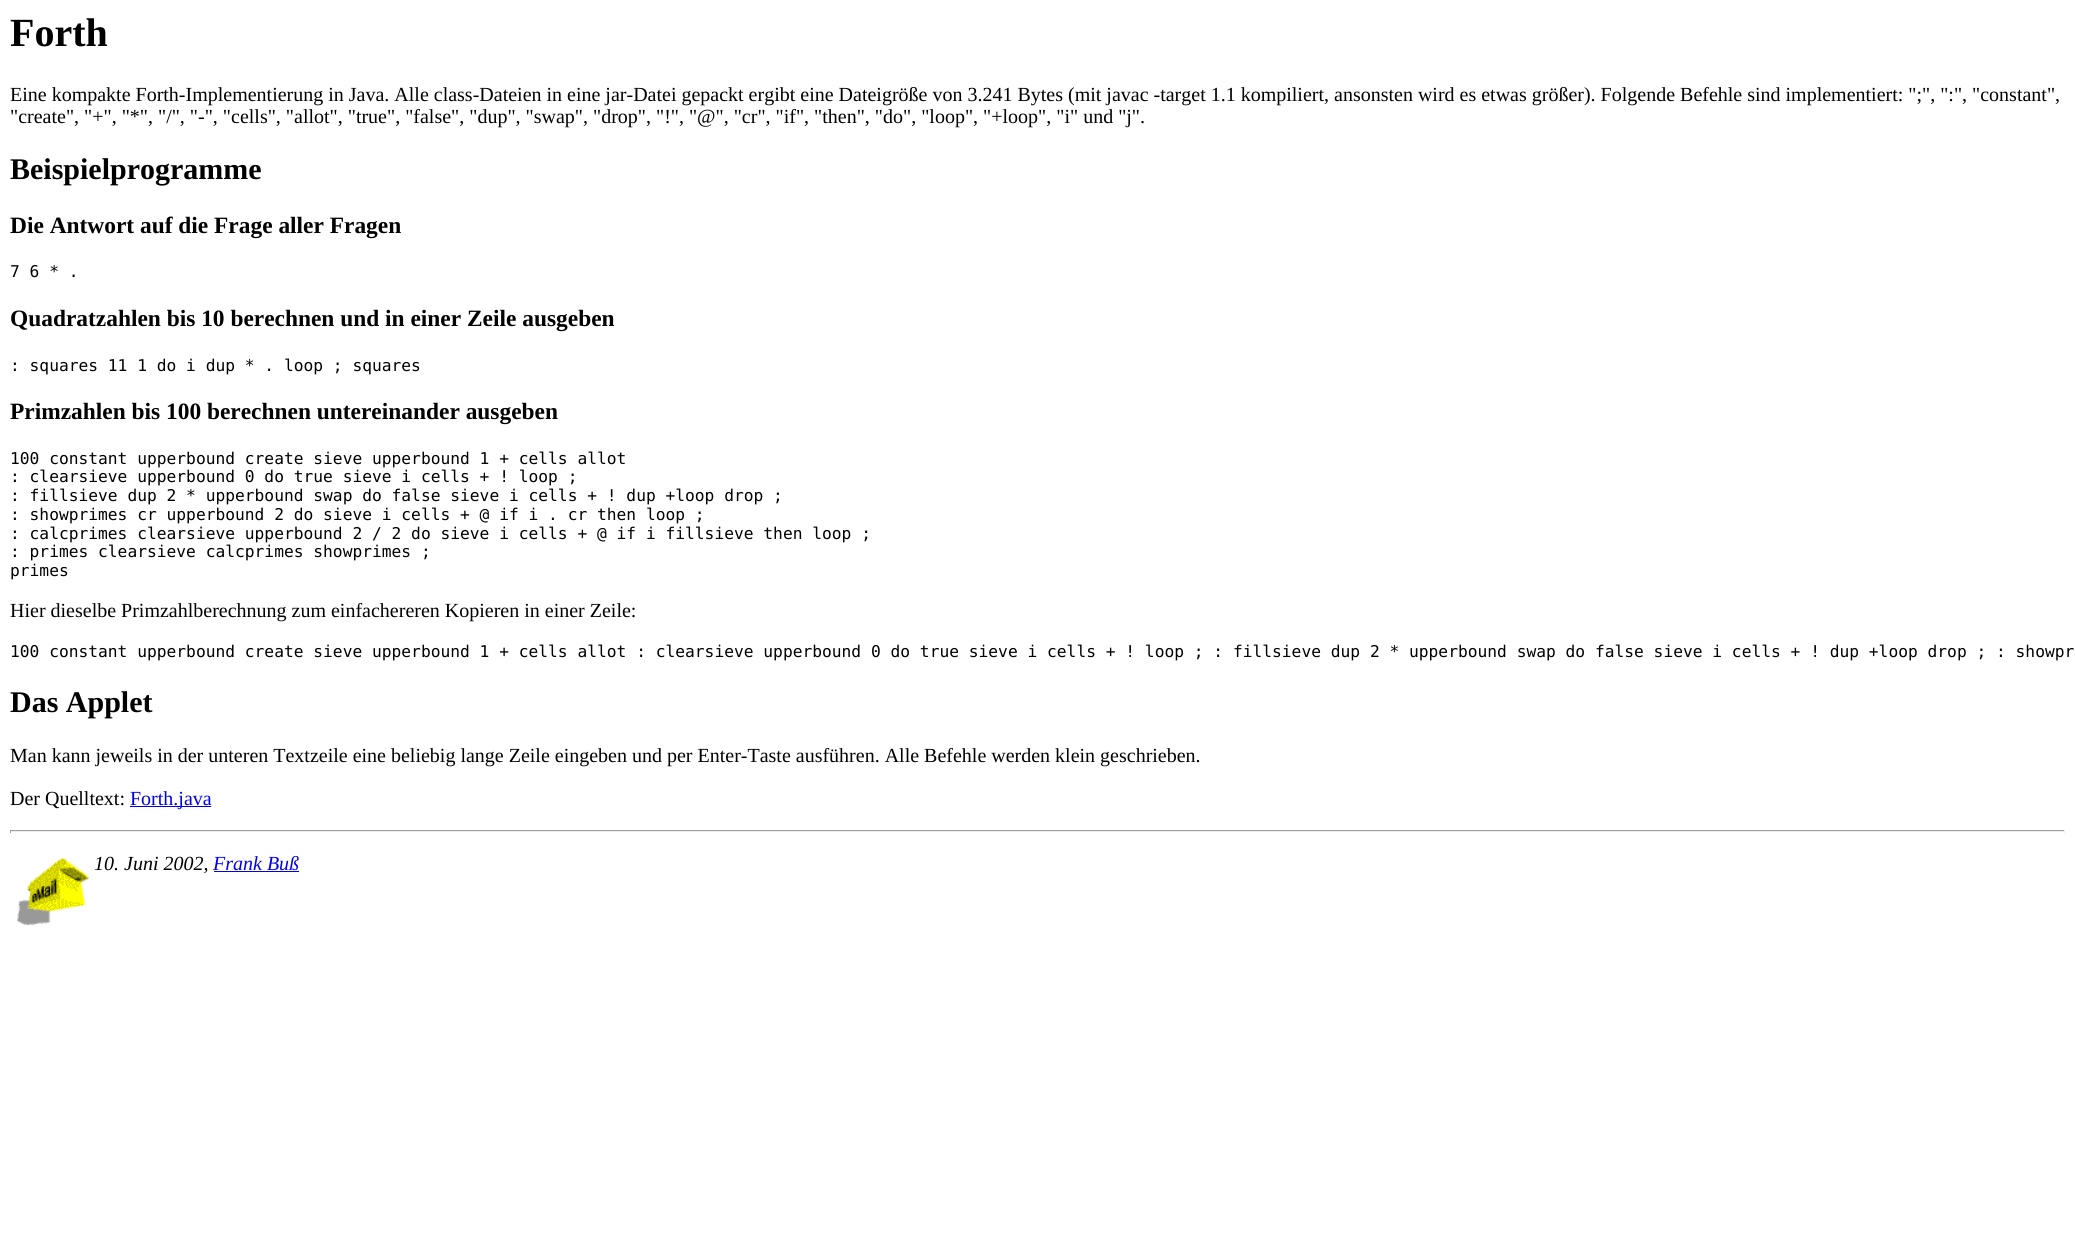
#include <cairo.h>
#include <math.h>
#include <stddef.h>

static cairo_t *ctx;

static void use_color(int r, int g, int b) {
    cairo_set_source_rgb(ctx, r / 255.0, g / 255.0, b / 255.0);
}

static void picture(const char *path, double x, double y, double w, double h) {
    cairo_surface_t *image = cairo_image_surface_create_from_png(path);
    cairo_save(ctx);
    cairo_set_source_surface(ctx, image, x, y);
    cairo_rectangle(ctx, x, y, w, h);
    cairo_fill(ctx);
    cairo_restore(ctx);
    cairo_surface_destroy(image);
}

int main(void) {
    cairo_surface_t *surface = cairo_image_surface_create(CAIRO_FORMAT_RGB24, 2075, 1238);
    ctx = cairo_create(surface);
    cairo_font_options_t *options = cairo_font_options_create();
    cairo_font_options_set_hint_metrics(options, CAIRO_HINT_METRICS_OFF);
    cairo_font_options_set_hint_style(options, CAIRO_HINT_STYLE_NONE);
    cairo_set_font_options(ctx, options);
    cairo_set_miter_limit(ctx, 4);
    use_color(255, 255, 255);
    cairo_paint(ctx);
    cairo_select_font_face(ctx, "Liberation Serif", CAIRO_FONT_SLANT_NORMAL, CAIRO_FONT_WEIGHT_BOLD);
    cairo_set_font_size(ctx, 40);
    use_color(0, 0, 0);
    cairo_move_to(ctx, 10, 46);
    cairo_show_text(ctx, "Forth");
    cairo_select_font_face(ctx, "Liberation Serif", CAIRO_FONT_SLANT_NORMAL, CAIRO_FONT_WEIGHT_NORMAL);
    cairo_set_font_size(ctx, 20);
    cairo_move_to(ctx, 10, 101);
    cairo_show_text(ctx, "Eine kompakte Forth-Implementierung in Java. Alle class-Dateien in eine jar-Datei gepackt ergibt eine Dateigröße von 3.241 Bytes (mit javac -target 1.1 kompiliert, ansonsten wird es etwas größer). Folgende Befehle sind implementiert: \";\", \":\", \"constant\",");
    cairo_move_to(ctx, 10, 123);
    cairo_show_text(ctx, "\"create\", \"+\", \"*\", \"/\", \"-\", \"cells\", \"allot\", \"true\", \"false\", \"dup\", \"swap\", \"drop\", \"!\", \"@\", \"cr\", \"if\", \"then\", \"do\", \"loop\", \"+loop\", \"i\" und \"j\".");
    cairo_select_font_face(ctx, "Liberation Serif", CAIRO_FONT_SLANT_NORMAL, CAIRO_FONT_WEIGHT_BOLD);
    cairo_set_font_size(ctx, 30);
    cairo_move_to(ctx, 10, 179);
    cairo_show_text(ctx, "Beispielprogramme");
    cairo_set_font_size(ctx, 23.4);
    cairo_move_to(ctx, 10, 233);
    cairo_show_text(ctx, "Die Antwort auf die Frage aller Fragen");
    cairo_select_font_face(ctx, "DejaVu Sans Mono", CAIRO_FONT_SLANT_NORMAL, CAIRO_FONT_WEIGHT_NORMAL);
    cairo_set_font_size(ctx, 16.25);
    cairo_move_to(ctx, 10, 277);
    cairo_show_text(ctx, "7 6 * .");
    cairo_select_font_face(ctx, "Liberation Serif", CAIRO_FONT_SLANT_NORMAL, CAIRO_FONT_WEIGHT_BOLD);
    cairo_set_font_size(ctx, 23.4);
    cairo_move_to(ctx, 10, 326);
    cairo_show_text(ctx, "Quadratzahlen bis 10 berechnen und in einer Zeile ausgeben");
    cairo_select_font_face(ctx, "DejaVu Sans Mono", CAIRO_FONT_SLANT_NORMAL, CAIRO_FONT_WEIGHT_NORMAL);
    cairo_set_font_size(ctx, 16.25);
    cairo_move_to(ctx, 10, 371);
    cairo_show_text(ctx, ": squares 11 1 do i dup * . loop ; squares");
    cairo_select_font_face(ctx, "Liberation Serif", CAIRO_FONT_SLANT_NORMAL, CAIRO_FONT_WEIGHT_BOLD);
    cairo_set_font_size(ctx, 23.4);
    cairo_move_to(ctx, 10, 419);
    cairo_show_text(ctx, "Primzahlen bis 100 berechnen untereinander ausgeben");
    cairo_select_font_face(ctx, "DejaVu Sans Mono", CAIRO_FONT_SLANT_NORMAL, CAIRO_FONT_WEIGHT_NORMAL);
    cairo_set_font_size(ctx, 16.25);
    cairo_move_to(ctx, 10, 464);
    cairo_show_text(ctx, "100 constant upperbound create sieve upperbound 1 + cells allot");
    cairo_move_to(ctx, 10, 482);
    cairo_show_text(ctx, ": clearsieve upperbound 0 do true sieve i cells + ! loop ;");
    cairo_move_to(ctx, 10, 501);
    cairo_show_text(ctx, ": fillsieve dup 2 * upperbound swap do false sieve i cells + ! dup +loop drop ;");
    cairo_move_to(ctx, 10, 520);
    cairo_show_text(ctx, ": showprimes cr upperbound 2 do sieve i cells + @ if i . cr then loop ;");
    cairo_move_to(ctx, 10, 539);
    cairo_show_text(ctx, ": calcprimes clearsieve upperbound 2 / 2 do sieve i cells + @ if i fillsieve then loop ;");
    cairo_move_to(ctx, 10, 557);
    cairo_show_text(ctx, ": primes clearsieve calcprimes showprimes ;");
    cairo_move_to(ctx, 10, 576);
    cairo_show_text(ctx, "primes");
    cairo_select_font_face(ctx, "Liberation Serif", CAIRO_FONT_SLANT_NORMAL, CAIRO_FONT_WEIGHT_NORMAL);
    cairo_set_font_size(ctx, 20);
    cairo_move_to(ctx, 10, 617);
    cairo_show_text(ctx, "Hier dieselbe Primzahlberechnung zum einfachereren Kopieren in einer Zeile:");
    cairo_select_font_face(ctx, "DejaVu Sans Mono", CAIRO_FONT_SLANT_NORMAL, CAIRO_FONT_WEIGHT_NORMAL);
    cairo_set_font_size(ctx, 16.25);
    cairo_move_to(ctx, 10, 657);
    cairo_show_text(ctx, "100 constant upperbound create sieve upperbound 1 + cells allot : clearsieve upperbound 0 do true sieve i cells + ! loop ; : fillsieve dup 2 * upperbound swap do false sieve i cells + ! dup +loop drop ; : showpr");
    cairo_select_font_face(ctx, "Liberation Serif", CAIRO_FONT_SLANT_NORMAL, CAIRO_FONT_WEIGHT_BOLD);
    cairo_set_font_size(ctx, 30);
    cairo_move_to(ctx, 10, 712);
    cairo_show_text(ctx, "Das Applet");
    cairo_select_font_face(ctx, "Liberation Serif", CAIRO_FONT_SLANT_NORMAL, CAIRO_FONT_WEIGHT_NORMAL);
    cairo_set_font_size(ctx, 20);
    cairo_move_to(ctx, 10, 762);
    cairo_show_text(ctx, "Man kann jeweils in der unteren Textzeile eine beliebig lange Zeile eingeben und per Enter-Taste ausführen. Alle Befehle werden klein geschrieben.");
    cairo_move_to(ctx, 10, 805);
    cairo_show_text(ctx, "Der Quelltext:");
    use_color(0, 0, 238);
    cairo_rectangle(ctx, 130, 806, 81, 1);
    cairo_fill(ctx);
    cairo_move_to(ctx, 130, 805);
    cairo_show_text(ctx, "Forth.java");
    use_color(159, 159, 159);
    cairo_rectangle(ctx, 10, 830, 2055, 1);
    cairo_fill(ctx);
    use_color(238, 238, 238);
    cairo_rectangle(ctx, 2064, 830, 1, 3);
    cairo_fill(ctx);
    cairo_rectangle(ctx, 10, 831, 2055, 1);
    cairo_fill(ctx);
    use_color(159, 159, 159);
    cairo_rectangle(ctx, 10, 830, 1, 3);
    cairo_fill(ctx);
    picture("img1.png", 17, 858, 72, 68);
    cairo_select_font_face(ctx, "Liberation Serif", CAIRO_FONT_SLANT_ITALIC, CAIRO_FONT_WEIGHT_NORMAL);
    use_color(0, 0, 0);
    cairo_move_to(ctx, 94, 870);
    cairo_show_text(ctx, "10. Juni 2002,");
    use_color(0, 0, 238);
    cairo_move_to(ctx, 213, 870);
    cairo_show_text(ctx, "Frank Buß");
    cairo_rectangle(ctx, 214, 871, 85, 1);
    cairo_fill(ctx);
    cairo_surface_write_to_png(surface, "result.png");
    cairo_font_options_destroy(options);
    cairo_destroy(ctx);
    cairo_surface_destroy(surface);
    return 0;
}
